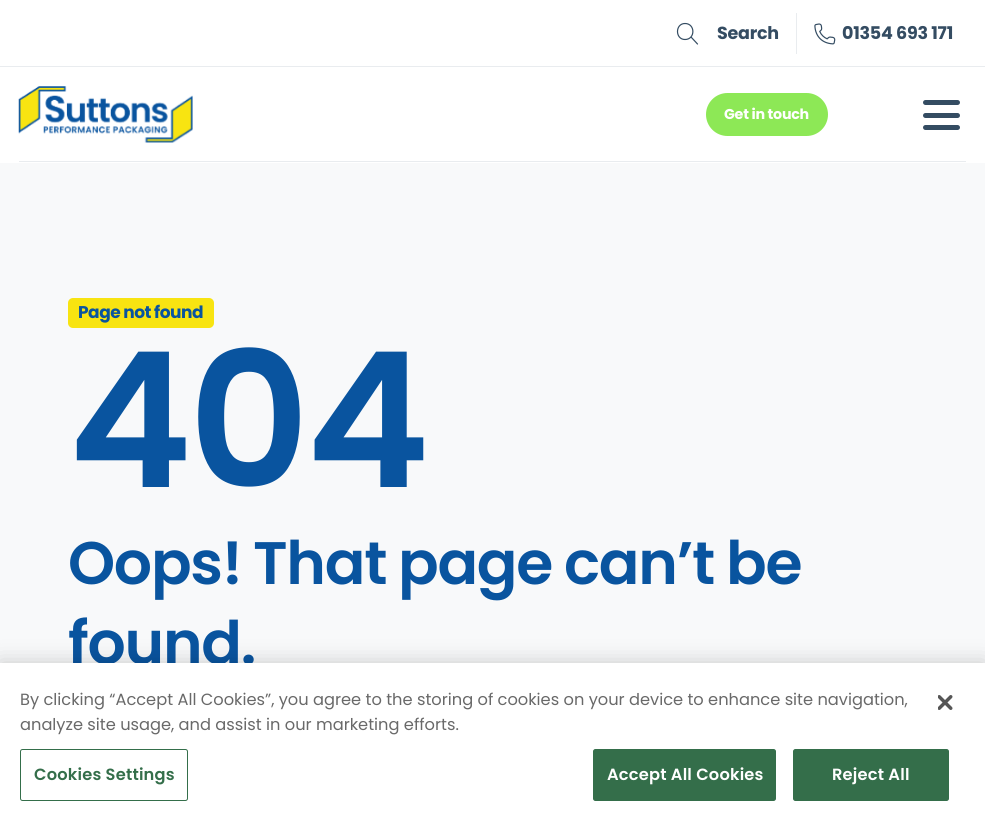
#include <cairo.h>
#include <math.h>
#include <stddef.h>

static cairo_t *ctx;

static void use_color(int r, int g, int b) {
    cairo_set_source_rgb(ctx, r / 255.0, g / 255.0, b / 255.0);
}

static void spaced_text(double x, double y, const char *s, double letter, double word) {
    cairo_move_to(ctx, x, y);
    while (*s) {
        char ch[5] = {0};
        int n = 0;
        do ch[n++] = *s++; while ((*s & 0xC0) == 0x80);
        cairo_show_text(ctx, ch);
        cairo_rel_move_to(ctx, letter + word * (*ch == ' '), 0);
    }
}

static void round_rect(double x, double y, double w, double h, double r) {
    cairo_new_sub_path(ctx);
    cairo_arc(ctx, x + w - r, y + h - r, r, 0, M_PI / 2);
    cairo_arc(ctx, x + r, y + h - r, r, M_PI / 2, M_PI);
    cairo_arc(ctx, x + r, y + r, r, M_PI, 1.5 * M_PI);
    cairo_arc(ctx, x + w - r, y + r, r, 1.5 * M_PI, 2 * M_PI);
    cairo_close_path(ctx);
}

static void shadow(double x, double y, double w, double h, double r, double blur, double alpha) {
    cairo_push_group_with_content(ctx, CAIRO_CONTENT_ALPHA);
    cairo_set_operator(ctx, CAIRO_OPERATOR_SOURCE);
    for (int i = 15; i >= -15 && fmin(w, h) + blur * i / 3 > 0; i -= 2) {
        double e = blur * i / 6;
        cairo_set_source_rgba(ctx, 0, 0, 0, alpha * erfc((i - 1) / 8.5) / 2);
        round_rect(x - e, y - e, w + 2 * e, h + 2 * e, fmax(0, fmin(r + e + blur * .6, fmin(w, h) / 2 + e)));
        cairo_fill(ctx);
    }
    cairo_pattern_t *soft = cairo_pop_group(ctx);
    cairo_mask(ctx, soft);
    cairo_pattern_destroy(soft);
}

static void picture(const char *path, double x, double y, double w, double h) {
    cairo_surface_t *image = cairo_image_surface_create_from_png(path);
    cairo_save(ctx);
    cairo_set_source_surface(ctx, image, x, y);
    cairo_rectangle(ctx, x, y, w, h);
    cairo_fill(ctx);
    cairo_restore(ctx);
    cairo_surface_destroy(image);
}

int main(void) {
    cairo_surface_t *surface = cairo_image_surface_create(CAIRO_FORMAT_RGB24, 985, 830);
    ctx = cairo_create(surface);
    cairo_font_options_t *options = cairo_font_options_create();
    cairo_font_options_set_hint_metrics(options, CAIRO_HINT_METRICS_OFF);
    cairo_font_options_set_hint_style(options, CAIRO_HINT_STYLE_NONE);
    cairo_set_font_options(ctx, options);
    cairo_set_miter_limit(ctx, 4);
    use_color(255, 255, 255);
    cairo_paint(ctx);
    cairo_new_path(ctx);
    cairo_move_to(ctx, 685, 39.5);
    cairo_curve_to(ctx, 695.5, 39.5, 695.5, 23.5, 685, 23.5);
    cairo_curve_to(ctx, 675, 23.5, 675, 39.5, 685, 39.5);
    cairo_close_path(ctx);
    cairo_move_to(ctx, 691, 37);
    cairo_line_to(ctx, 697.5, 44);
    use_color(52, 76, 98);
    cairo_set_line_width(ctx, 1.2);
    cairo_set_line_cap(ctx, CAIRO_LINE_CAP_ROUND);
    cairo_set_line_join(ctx, CAIRO_LINE_JOIN_ROUND);
    cairo_stroke(ctx);
    cairo_select_font_face(ctx, "Poppins", CAIRO_FONT_SLANT_NORMAL, CAIRO_FONT_WEIGHT_BOLD);
    cairo_set_font_size(ctx, 17.5);
    spaced_text(717, 39, "Search", -0.25, 0);
    use_color(233, 236, 239);
    cairo_rectangle(ctx, 796, 13, 1, 41);
    cairo_fill(ctx);
    picture("img1.png", 814, 23, 22, 22);
    use_color(52, 76, 98);
    spaced_text(842, 39, "01354 693 171", -0.25, 0);
    use_color(233, 236, 239);
    cairo_rectangle(ctx, 0, 66, 985, 1);
    cairo_fill(ctx);
    picture("img2.png", 18, 86, 175, 57);
    use_color(141, 232, 86);
    round_rect(706, 93, 122, 43, 21.5);
    cairo_fill(ctx);
    cairo_set_font_size(ctx, 14.25);
    use_color(255, 255, 255);
    spaced_text(724, 119, "Get in touch", -0.25, 0);
    use_color(52, 76, 98);
    round_rect(923, 100, 37, 5, 2.5);
    cairo_fill(ctx);
    round_rect(923, 113, 37, 5, 2.5);
    cairo_fill(ctx);
    round_rect(923, 125, 37, 5, 2.5);
    cairo_fill(ctx);
    use_color(233, 236, 239);
    cairo_rectangle(ctx, 19, 161, 947, 1);
    cairo_fill(ctx);
    use_color(248, 249, 250);
    cairo_rectangle(ctx, 0, 163, 985, 500);
    cairo_fill(ctx);
    use_color(248, 228, 17);
    round_rect(68, 298, 146, 30, 5);
    cairo_fill(ctx);
    cairo_set_font_size(ctx, 17);
    use_color(9, 84, 159);
    spaced_text(78, 318, "Page not found", -0.5, 0);
    cairo_select_font_face(ctx, "Poppins SemiBold", CAIRO_FONT_SLANT_NORMAL, CAIRO_FONT_WEIGHT_NORMAL);
    cairo_set_font_size(ctx, 188);
    spaced_text(68, 487, "404", -4, 0);
    cairo_set_font_size(ctx, 60);
    spaced_text(68, 584, "Oops!", -1.25, 0);
    spaced_text(253, 584, "That", -1.25, 0);
    spaced_text(398, 584, "page", -1.25, 0);
    spaced_text(564, 584, "can’t", -1.25, 0);
    spaced_text(726, 584, "be", -1.25, 0);
    spaced_text(68, 664, "found.", -1.25, 0);
    use_color(0, 0, 0);
    shadow(0, 663, 985, 167, 0, 11, 0.2);
    use_color(255, 255, 255);
    cairo_rectangle(ctx, 0, 663, 985, 167);
    cairo_fill(ctx);
    cairo_select_font_face(ctx, "Poppins", CAIRO_FONT_SLANT_NORMAL, CAIRO_FONT_WEIGHT_NORMAL);
    cairo_set_font_size(ctx, 16.25);
    use_color(105, 105, 105);
    cairo_move_to(ctx, 20, 705);
    cairo_show_text(ctx, "By clicking “Accept All Cookies”, you agree to the storing of cookies on your device to enhance site navigation,");
    cairo_move_to(ctx, 20, 730);
    cairo_show_text(ctx, "analyze site usage, and assist in our marketing efforts.");
    round_rect(20.5, 749.5, 167, 51, 2);
    use_color(52, 110, 74);
    cairo_set_line_width(ctx, 1);
    cairo_set_line_cap(ctx, CAIRO_LINE_CAP_BUTT);
    cairo_set_line_join(ctx, CAIRO_LINE_JOIN_MITER);
    cairo_stroke(ctx);
    cairo_select_font_face(ctx, "Poppins SemiBold", CAIRO_FONT_SLANT_NORMAL, CAIRO_FONT_WEIGHT_NORMAL);
    spaced_text(34, 780, "Cookies Settings", 0.2, 0);
    round_rect(593.5, 749.5, 182, 51, 2);
    cairo_fill_preserve(ctx);
    cairo_stroke(ctx);
    use_color(255, 255, 255);
    spaced_text(607, 780, "Accept All Cookies", 0.2, 0);
    use_color(52, 110, 74);
    round_rect(793.5, 749.5, 155, 51, 2);
    cairo_fill_preserve(ctx);
    cairo_stroke(ctx);
    use_color(255, 255, 255);
    spaced_text(832, 780, "Reject All", 0.2, 0);
    picture("img3.png", 938, 695, 15, 15);
    cairo_surface_write_to_png(surface, "result.png");
    cairo_font_options_destroy(options);
    cairo_destroy(ctx);
    cairo_surface_destroy(surface);
    return 0;
}
